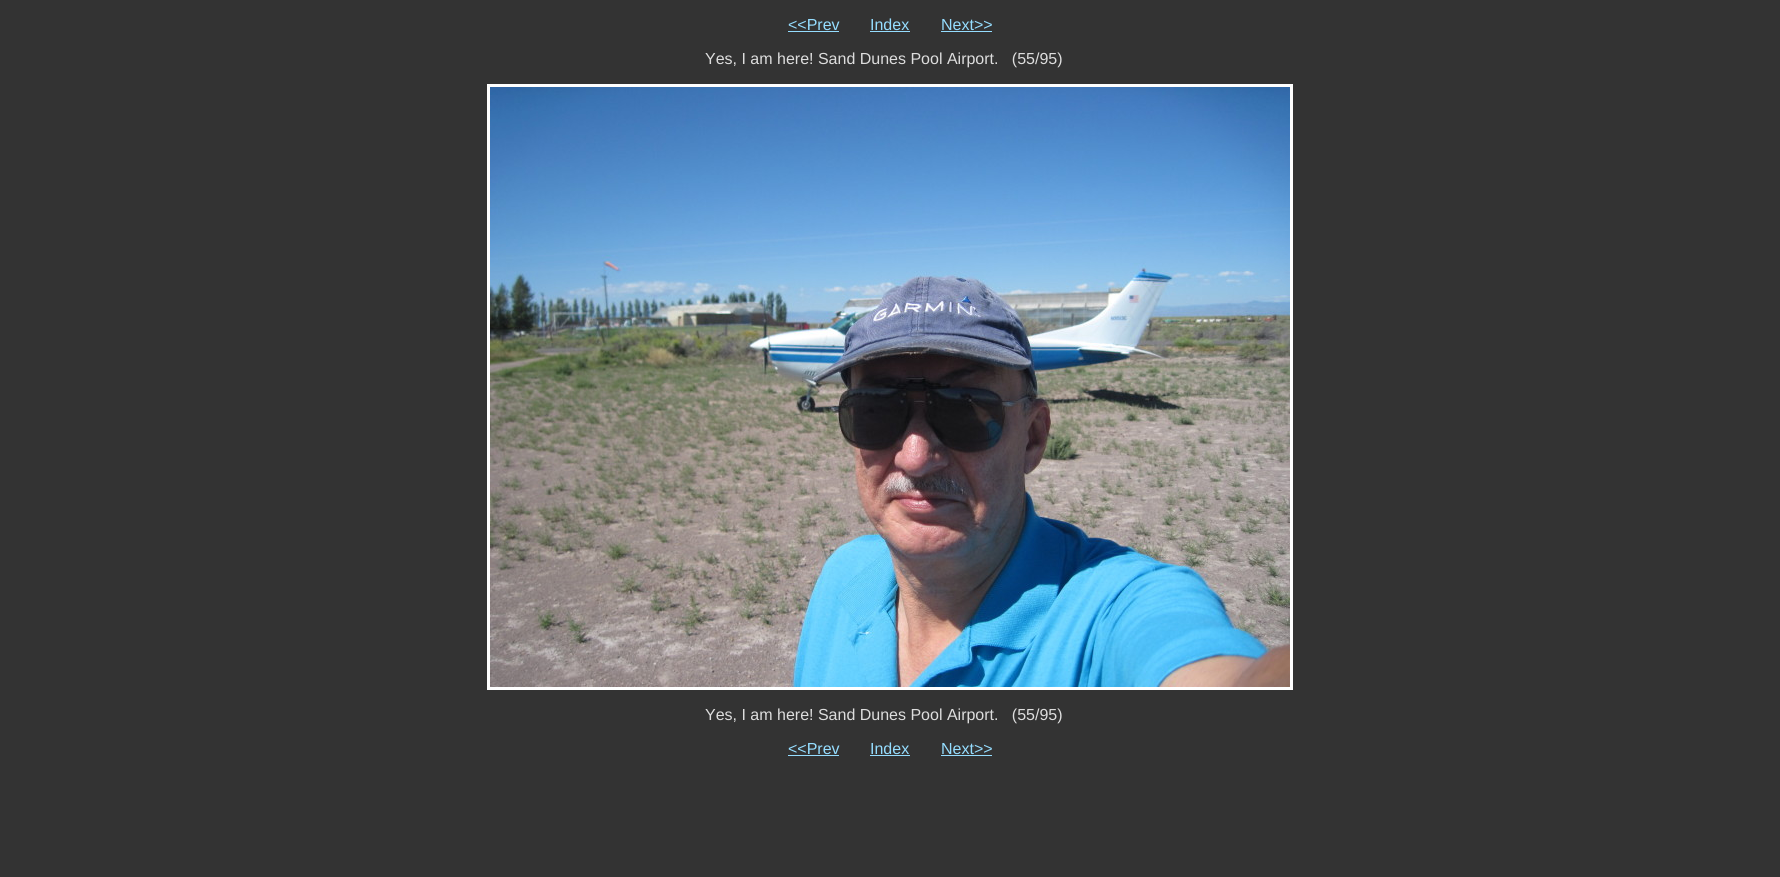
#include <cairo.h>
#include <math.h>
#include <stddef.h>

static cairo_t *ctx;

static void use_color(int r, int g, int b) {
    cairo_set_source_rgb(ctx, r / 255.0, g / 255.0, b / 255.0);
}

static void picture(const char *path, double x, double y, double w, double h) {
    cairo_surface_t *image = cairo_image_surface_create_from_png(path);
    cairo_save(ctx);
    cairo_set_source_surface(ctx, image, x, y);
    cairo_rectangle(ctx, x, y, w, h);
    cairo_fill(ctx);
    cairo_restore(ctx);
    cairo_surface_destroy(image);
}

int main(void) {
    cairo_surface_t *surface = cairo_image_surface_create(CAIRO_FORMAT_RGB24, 1780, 877);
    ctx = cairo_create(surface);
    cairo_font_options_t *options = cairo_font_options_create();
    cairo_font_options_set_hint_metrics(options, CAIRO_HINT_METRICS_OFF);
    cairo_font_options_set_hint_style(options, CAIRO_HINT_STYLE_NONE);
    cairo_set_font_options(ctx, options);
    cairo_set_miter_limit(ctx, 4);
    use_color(51, 51, 51);
    cairo_paint(ctx);
    cairo_select_font_face(ctx, "Liberation Sans", CAIRO_FONT_SLANT_NORMAL, CAIRO_FONT_WEIGHT_NORMAL);
    cairo_set_font_size(ctx, 16);
    use_color(149, 221, 255);
    cairo_move_to(ctx, 788, 30);
    cairo_show_text(ctx, "<<Prev");
    cairo_rectangle(ctx, 788, 31, 51, 1);
    cairo_fill(ctx);
    cairo_move_to(ctx, 870, 30);
    cairo_show_text(ctx, "Index");
    cairo_rectangle(ctx, 870, 31, 40, 1);
    cairo_fill(ctx);
    cairo_move_to(ctx, 941, 30);
    cairo_show_text(ctx, "Next>>");
    cairo_rectangle(ctx, 941, 31, 51, 1);
    cairo_fill(ctx);
    use_color(221, 221, 221);
    cairo_move_to(ctx, 705, 64);
    cairo_show_text(ctx, "Yes, I am here! Sand Dunes Pool Airport.   (55/95)");
    cairo_rectangle(ctx, 488.5, 85.5, 803, 603);
    use_color(255, 255, 255);
    cairo_set_line_width(ctx, 3);
    cairo_stroke(ctx);
    picture("img1.png", 490, 87, 800, 600);
    use_color(221, 221, 221);
    cairo_move_to(ctx, 705, 720);
    cairo_show_text(ctx, "Yes, I am here! Sand Dunes Pool Airport.   (55/95)");
    use_color(149, 221, 255);
    cairo_move_to(ctx, 788, 754);
    cairo_show_text(ctx, "<<Prev");
    cairo_rectangle(ctx, 788, 755, 51, 1);
    cairo_fill(ctx);
    cairo_move_to(ctx, 870, 754);
    cairo_show_text(ctx, "Index");
    cairo_rectangle(ctx, 870, 755, 40, 1);
    cairo_fill(ctx);
    cairo_move_to(ctx, 941, 754);
    cairo_show_text(ctx, "Next>>");
    cairo_rectangle(ctx, 941, 755, 51, 1);
    cairo_fill(ctx);
    cairo_surface_write_to_png(surface, "result.png");
    cairo_font_options_destroy(options);
    cairo_destroy(ctx);
    cairo_surface_destroy(surface);
    return 0;
}
